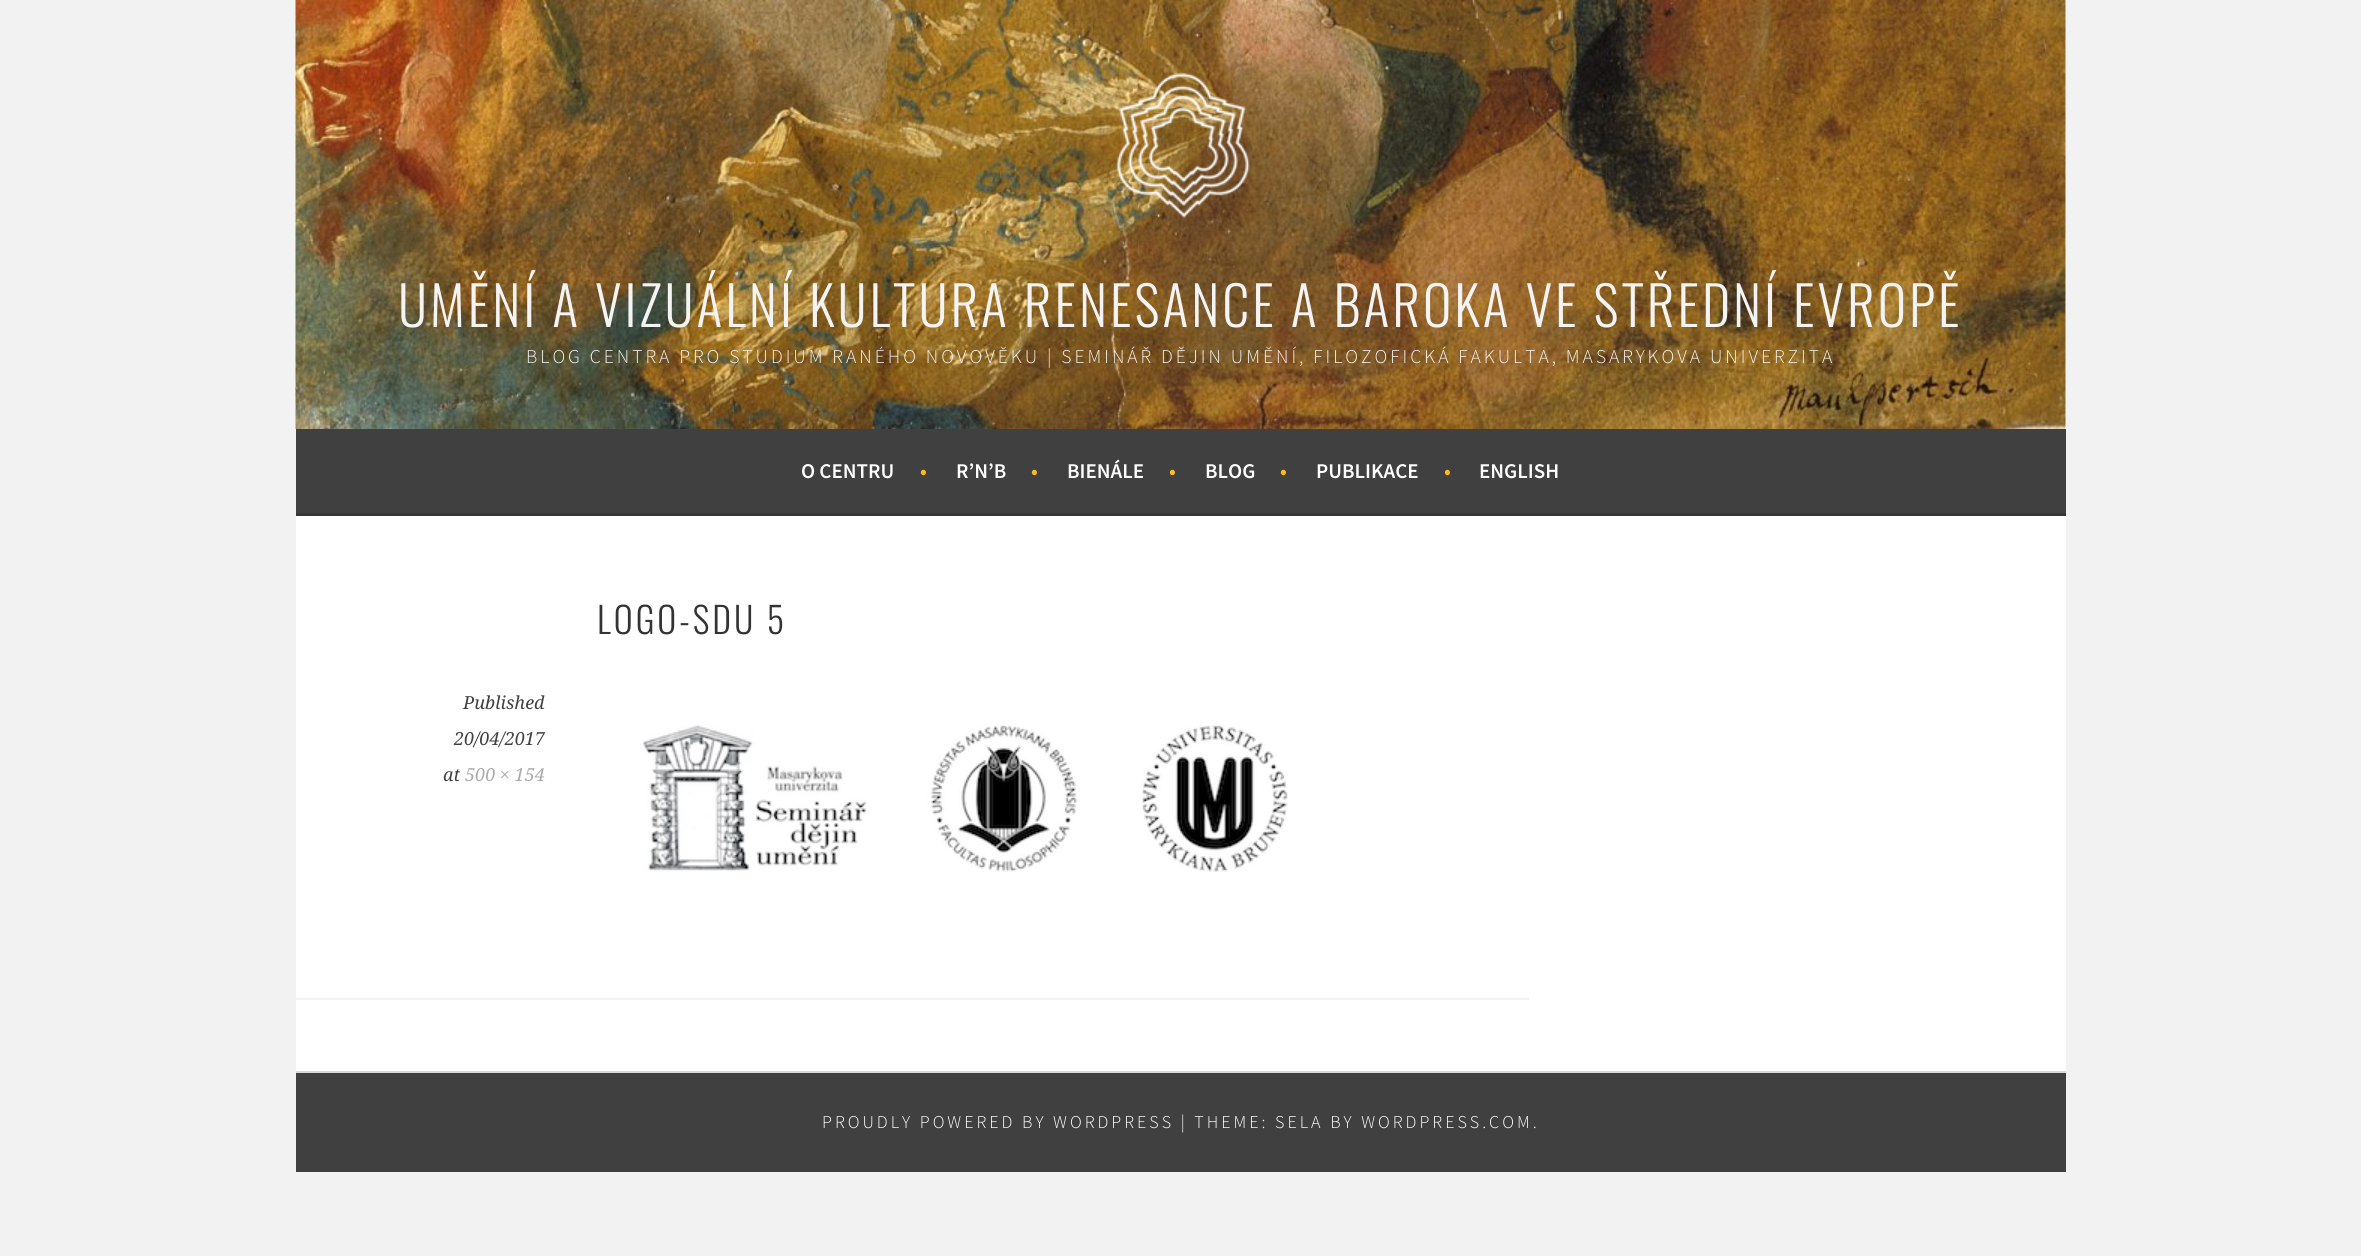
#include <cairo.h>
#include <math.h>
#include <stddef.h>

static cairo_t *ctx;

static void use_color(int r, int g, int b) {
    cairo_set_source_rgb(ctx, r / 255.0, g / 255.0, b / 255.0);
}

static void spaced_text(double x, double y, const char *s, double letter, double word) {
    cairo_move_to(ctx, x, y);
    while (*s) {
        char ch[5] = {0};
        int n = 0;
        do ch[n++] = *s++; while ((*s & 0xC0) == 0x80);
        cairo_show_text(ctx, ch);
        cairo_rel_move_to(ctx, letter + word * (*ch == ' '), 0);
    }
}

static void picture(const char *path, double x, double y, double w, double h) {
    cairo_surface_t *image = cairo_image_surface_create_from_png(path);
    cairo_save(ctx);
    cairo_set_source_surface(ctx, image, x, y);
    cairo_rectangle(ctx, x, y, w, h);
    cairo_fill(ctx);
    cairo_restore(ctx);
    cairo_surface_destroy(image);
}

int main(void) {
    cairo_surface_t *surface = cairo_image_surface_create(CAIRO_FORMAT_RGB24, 2361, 1256);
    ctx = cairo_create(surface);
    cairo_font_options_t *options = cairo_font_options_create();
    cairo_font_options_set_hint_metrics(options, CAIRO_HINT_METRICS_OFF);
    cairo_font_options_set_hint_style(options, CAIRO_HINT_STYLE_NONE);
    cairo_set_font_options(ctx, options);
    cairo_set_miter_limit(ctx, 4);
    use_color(242, 242, 242);
    cairo_paint(ctx);
    use_color(255, 255, 255);
    cairo_rectangle(ctx, 2065, 0, 1, 429);
    cairo_fill(ctx);
    picture("img1.png", 295, 0, 1771, 429);
    picture("img2.png", 1116, 73, 134, 145);
    cairo_select_font_face(ctx, "Oswald Light", CAIRO_FONT_SLANT_NORMAL, CAIRO_FONT_WEIGHT_NORMAL);
    cairo_set_font_size(ctx, 54);
    use_color(244, 244, 244);
    spaced_text(398, 327, "UMĚNÍ A VIZUÁLNÍ KULTURA RENESANCE A BAROKA VE STŘEDNÍ EVROPĚ", 3, 0);
    cairo_select_font_face(ctx, "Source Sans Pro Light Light", CAIRO_FONT_SLANT_NORMAL, CAIRO_FONT_WEIGHT_NORMAL);
    cairo_set_font_size(ctx, 19.5);
    spaced_text(526, 363, "BLOG CENTRA PRO STUDIUM RANÉHO NOVOVĚKU | SEMINÁŘ DĚJIN UMĚNÍ, FILOZOFICKÁ FAKULTA, MASARYKOVA UNIVERZITA", 3, 0);
    use_color(64, 64, 64);
    cairo_rectangle(ctx, 296, 429, 1770, 84);
    cairo_fill(ctx);
    use_color(54, 54, 54);
    cairo_rectangle(ctx, 296, 513, 1770, 3);
    cairo_fill(ctx);
    cairo_select_font_face(ctx, "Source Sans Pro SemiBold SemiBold", CAIRO_FONT_SLANT_NORMAL, CAIRO_FONT_WEIGHT_NORMAL);
    cairo_set_font_size(ctx, 21);
    use_color(255, 255, 255);
    cairo_move_to(ctx, 801, 478);
    cairo_show_text(ctx, "O CENTRU");
    use_color(255, 188, 22);
    cairo_move_to(ctx, 920, 478);
    cairo_show_text(ctx, "•");
    use_color(255, 255, 255);
    cairo_move_to(ctx, 956, 478);
    cairo_show_text(ctx, "R’N’B");
    use_color(255, 188, 22);
    cairo_move_to(ctx, 1031, 478);
    cairo_show_text(ctx, "•");
    use_color(255, 255, 255);
    cairo_move_to(ctx, 1067, 478);
    cairo_show_text(ctx, "BIENÁLE");
    use_color(255, 188, 22);
    cairo_move_to(ctx, 1169, 478);
    cairo_show_text(ctx, "•");
    use_color(255, 255, 255);
    cairo_move_to(ctx, 1205, 478);
    cairo_show_text(ctx, "BLOG");
    use_color(255, 188, 22);
    cairo_move_to(ctx, 1280, 478);
    cairo_show_text(ctx, "•");
    use_color(255, 255, 255);
    cairo_move_to(ctx, 1316, 478);
    cairo_show_text(ctx, "PUBLIKACE");
    use_color(255, 188, 22);
    cairo_move_to(ctx, 1444, 478);
    cairo_show_text(ctx, "•");
    use_color(255, 255, 255);
    cairo_move_to(ctx, 1479, 478);
    cairo_show_text(ctx, "ENGLISH");
    cairo_rectangle(ctx, 296, 516, 1770, 555);
    cairo_fill(ctx);
    cairo_select_font_face(ctx, "Oswald Light", CAIRO_FONT_SLANT_NORMAL, CAIRO_FONT_WEIGHT_NORMAL);
    cairo_set_font_size(ctx, 36);
    use_color(51, 51, 51);
    spaced_text(597, 634, "LOGO-SDU 5", 3, 0);
    cairo_select_font_face(ctx, "Droid Serif", CAIRO_FONT_SLANT_ITALIC, CAIRO_FONT_WEIGHT_NORMAL);
    cairo_set_font_size(ctx, 18);
    use_color(64, 64, 64);
    cairo_move_to(ctx, 463, 709);
    cairo_show_text(ctx, "Published");
    cairo_move_to(ctx, 454, 745);
    cairo_show_text(ctx, "20/04/2017");
    cairo_move_to(ctx, 443, 781);
    cairo_show_text(ctx, "at");
    use_color(170, 170, 170);
    cairo_move_to(ctx, 465, 781);
    cairo_show_text(ctx, "500 × 154");
    picture("img3.png", 643, 725, 645, 147);
    use_color(242, 242, 242);
    cairo_rectangle(ctx, 296, 998, 1233, 2);
    cairo_fill(ctx);
    use_color(64, 64, 64);
    cairo_rectangle(ctx, 296, 1073, 1770, 99);
    cairo_fill(ctx);
    use_color(217, 217, 217);
    cairo_rectangle(ctx, 296, 1071, 1770, 2);
    cairo_fill(ctx);
    cairo_select_font_face(ctx, "Source Sans Pro Light Light", CAIRO_FONT_SLANT_NORMAL, CAIRO_FONT_WEIGHT_NORMAL);
    use_color(255, 255, 255);
    spaced_text(822, 1128, "PROUDLY POWERED BY WORDPRESS | THEME: SELA BY WORDPRESS.COM.", 3, 0);
    cairo_surface_write_to_png(surface, "result.png");
    cairo_font_options_destroy(options);
    cairo_destroy(ctx);
    cairo_surface_destroy(surface);
    return 0;
}
